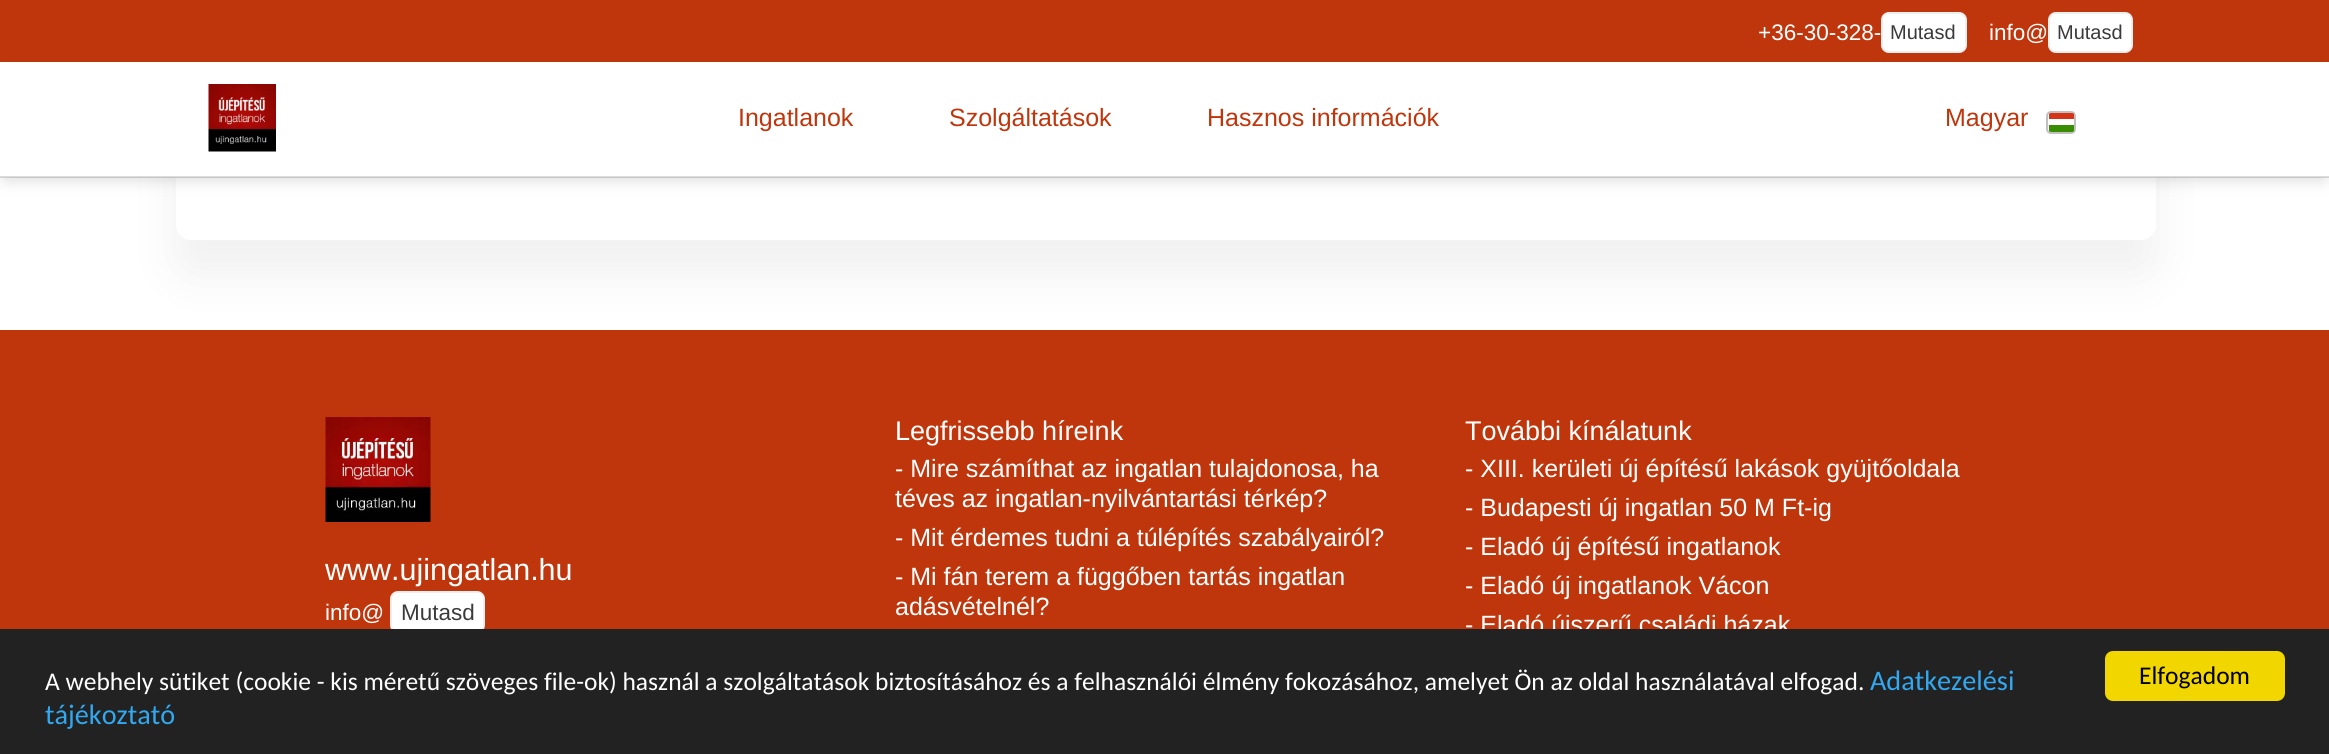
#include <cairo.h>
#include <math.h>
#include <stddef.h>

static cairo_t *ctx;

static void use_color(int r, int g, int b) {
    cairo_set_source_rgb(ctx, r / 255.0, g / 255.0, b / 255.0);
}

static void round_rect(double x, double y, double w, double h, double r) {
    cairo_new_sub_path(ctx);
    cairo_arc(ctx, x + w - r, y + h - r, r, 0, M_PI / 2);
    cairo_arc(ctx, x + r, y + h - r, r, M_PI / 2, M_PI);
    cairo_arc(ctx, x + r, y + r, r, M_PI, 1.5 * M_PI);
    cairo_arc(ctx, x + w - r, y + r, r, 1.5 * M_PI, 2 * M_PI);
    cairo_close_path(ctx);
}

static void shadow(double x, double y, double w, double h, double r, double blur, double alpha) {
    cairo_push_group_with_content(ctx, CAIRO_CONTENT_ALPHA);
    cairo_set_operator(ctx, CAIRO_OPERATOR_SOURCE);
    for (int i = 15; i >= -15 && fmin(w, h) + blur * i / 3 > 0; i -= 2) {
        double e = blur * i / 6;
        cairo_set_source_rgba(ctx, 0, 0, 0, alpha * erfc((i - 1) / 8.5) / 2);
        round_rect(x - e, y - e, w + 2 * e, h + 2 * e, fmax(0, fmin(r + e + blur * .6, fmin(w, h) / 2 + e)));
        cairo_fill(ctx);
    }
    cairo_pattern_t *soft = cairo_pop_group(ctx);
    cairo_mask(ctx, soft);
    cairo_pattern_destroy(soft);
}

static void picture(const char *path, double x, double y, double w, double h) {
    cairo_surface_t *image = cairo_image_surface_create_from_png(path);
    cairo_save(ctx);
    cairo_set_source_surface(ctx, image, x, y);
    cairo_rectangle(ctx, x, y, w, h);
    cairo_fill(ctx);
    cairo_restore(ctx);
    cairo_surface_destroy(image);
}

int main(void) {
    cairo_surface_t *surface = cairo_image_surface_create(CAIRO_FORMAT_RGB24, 2329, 754);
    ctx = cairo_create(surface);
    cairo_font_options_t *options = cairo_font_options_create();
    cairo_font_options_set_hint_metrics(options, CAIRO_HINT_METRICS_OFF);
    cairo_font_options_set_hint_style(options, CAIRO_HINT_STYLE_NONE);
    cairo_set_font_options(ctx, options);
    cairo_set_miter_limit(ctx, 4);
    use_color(255, 255, 255);
    cairo_paint(ctx);
    use_color(191, 54, 12);
    cairo_rectangle(ctx, 0, 330, 2329, 299);
    cairo_fill(ctx);
    use_color(0, 0, 0);
    shadow(176, 80, 1980, 195, 15, 25.5, 0.06);
    use_color(255, 255, 255);
    round_rect(176, 45, 1980, 195, 15);
    cairo_fill(ctx);
    use_color(191, 54, 12);
    cairo_rectangle(ctx, 0, 0, 2329, 62);
    cairo_fill(ctx);
    cairo_select_font_face(ctx, "Liberation Sans", CAIRO_FONT_SLANT_NORMAL, CAIRO_FONT_WEIGHT_NORMAL);
    cairo_set_font_size(ctx, 22.5);
    use_color(255, 255, 255);
    cairo_move_to(ctx, 1758, 40);
    cairo_show_text(ctx, "+36-30-328-");
    round_rect(1881, 12, 86, 41, 8);
    cairo_fill(ctx);
    round_rect(1882, 13, 84, 39, 7);
    cairo_set_source_rgba(ctx, 0.318, 0.318, 0.318, 0.1);
    cairo_stroke(ctx);
    cairo_set_font_size(ctx, 20);
    use_color(58, 58, 58);
    cairo_move_to(ctx, 1890, 39);
    cairo_show_text(ctx, "Mutasd");
    cairo_set_font_size(ctx, 22.5);
    use_color(255, 255, 255);
    cairo_move_to(ctx, 1989, 40);
    cairo_show_text(ctx, "info@");
    round_rect(2048, 12, 85, 41, 8);
    cairo_fill(ctx);
    round_rect(2049, 13, 83, 39, 7);
    cairo_set_source_rgba(ctx, 0.318, 0.318, 0.318, 0.1);
    cairo_stroke(ctx);
    cairo_set_font_size(ctx, 20);
    use_color(58, 58, 58);
    cairo_move_to(ctx, 2057, 39);
    cairo_show_text(ctx, "Mutasd");
    use_color(0, 0, 0);
    shadow(6, 74, 2318, 103, 0, 9, 0.2);
    use_color(255, 255, 255);
    cairo_rectangle(ctx, 0, 62, 2329, 115);
    cairo_fill(ctx);
    cairo_set_source_rgba(ctx, 0.318, 0.318, 0.318, 0.2);
    cairo_rectangle(ctx, 0, 176, 2329, 2);
    cairo_fill(ctx);
    picture("img1.png", 208, 84, 68, 68);
    cairo_set_font_size(ctx, 25);
    use_color(191, 54, 12);
    cairo_move_to(ctx, 738, 126);
    cairo_show_text(ctx, "Ingatlanok");
    cairo_move_to(ctx, 949, 126);
    cairo_show_text(ctx, "Szolgáltatások");
    cairo_move_to(ctx, 1207, 126);
    cairo_show_text(ctx, "Hasznos információk");
    cairo_move_to(ctx, 1945, 126);
    cairo_show_text(ctx, "Magyar");
    round_rect(2047, 112, 28, 21, 4);
    use_color(192, 192, 192);
    cairo_stroke(ctx);
    cairo_save(ctx);
    round_rect(2048, 113, 27, 19, 3);
    cairo_clip(ctx);
    use_color(255, 255, 255);
    cairo_rectangle(ctx, 2049, 113, 25, 19);
    cairo_fill(ctx);
    use_color(56, 141, 0);
    cairo_rectangle(ctx, 2049, 125, 25, 7);
    cairo_fill(ctx);
    use_color(212, 53, 22);
    cairo_rectangle(ctx, 2049, 113, 25, 6);
    cairo_fill(ctx);
    cairo_restore(ctx);
    picture("img2.png", 325, 417, 106, 105);
    cairo_set_font_size(ctx, 30.5);
    use_color(255, 255, 255);
    cairo_move_to(ctx, 325, 580);
    cairo_show_text(ctx, "www.ujingatlan.hu");
    cairo_set_font_size(ctx, 22.5);
    cairo_move_to(ctx, 325, 620);
    cairo_show_text(ctx, "info@");
    round_rect(390, 591, 95, 42, 8);
    cairo_fill(ctx);
    round_rect(391, 592, 93, 40, 7);
    cairo_set_source_rgba(ctx, 0.318, 0.318, 0.318, 0.1);
    cairo_stroke(ctx);
    use_color(58, 58, 58);
    cairo_move_to(ctx, 401, 620);
    cairo_show_text(ctx, "Mutasd");
    cairo_set_font_size(ctx, 27);
    use_color(255, 255, 255);
    cairo_move_to(ctx, 895, 440);
    cairo_show_text(ctx, "Legfrissebb híreink");
    cairo_set_font_size(ctx, 25);
    cairo_move_to(ctx, 895, 477);
    cairo_show_text(ctx, "- Mire számíthat az ingatlan tulajdonosa, ha");
    cairo_move_to(ctx, 895, 507);
    cairo_show_text(ctx, "téves az ingatlan-nyilvántartási térkép?");
    cairo_move_to(ctx, 895, 546);
    cairo_show_text(ctx, "- Mit érdemes tudni a túlépítés szabályairól?");
    cairo_move_to(ctx, 895, 585);
    cairo_show_text(ctx, "- Mi fán terem a függőben tartás ingatlan");
    cairo_move_to(ctx, 895, 615);
    cairo_show_text(ctx, "adásvételnél?");
    cairo_set_font_size(ctx, 27);
    cairo_move_to(ctx, 1465, 440);
    cairo_show_text(ctx, "További kínálatunk");
    cairo_set_font_size(ctx, 25);
    cairo_move_to(ctx, 1465, 477);
    cairo_show_text(ctx, "- XIII. kerületi új építésű lakások gyüjtőoldala");
    cairo_move_to(ctx, 1465, 516);
    cairo_show_text(ctx, "- Budapesti új ingatlan 50 M Ft-ig");
    cairo_move_to(ctx, 1465, 555);
    cairo_show_text(ctx, "- Eladó új építésű ingatlanok");
    cairo_move_to(ctx, 1465, 594);
    cairo_show_text(ctx, "- Eladó új ingatlanok Vácon");
    cairo_move_to(ctx, 1465, 633);
    cairo_show_text(ctx, "- Eladó újszerű családi házak");
    use_color(34, 34, 34);
    cairo_rectangle(ctx, 0, 629, 2329, 125);
    cairo_fill(ctx);
    cairo_select_font_face(ctx, "Carlito", CAIRO_FONT_SLANT_NORMAL, CAIRO_FONT_WEIGHT_NORMAL);
    cairo_set_font_size(ctx, 25.5);
    use_color(255, 255, 255);
    cairo_move_to(ctx, 45, 690);
    cairo_show_text(ctx, "A webhely sütiket (cookie - kis méretű szöveges file-ok) használ a szolgáltatások biztosításához és a felhasználói élmény fokozásához, amelyet Ön az oldal használatával elfogad.");
    cairo_set_font_size(ctx, 28.25);
    use_color(49, 168, 240);
    cairo_move_to(ctx, 1870, 690);
    cairo_show_text(ctx, "Adatkezelési");
    cairo_move_to(ctx, 45, 724);
    cairo_show_text(ctx, "tájékoztató");
    use_color(241, 214, 0);
    round_rect(2105, 651, 180, 50, 8);
    cairo_fill(ctx);
    cairo_set_font_size(ctx, 25.5);
    use_color(0, 0, 0);
    cairo_move_to(ctx, 2139, 684);
    cairo_show_text(ctx, "Elfogadom");
    cairo_surface_write_to_png(surface, "result.png");
    cairo_font_options_destroy(options);
    cairo_destroy(ctx);
    cairo_surface_destroy(surface);
    return 0;
}
